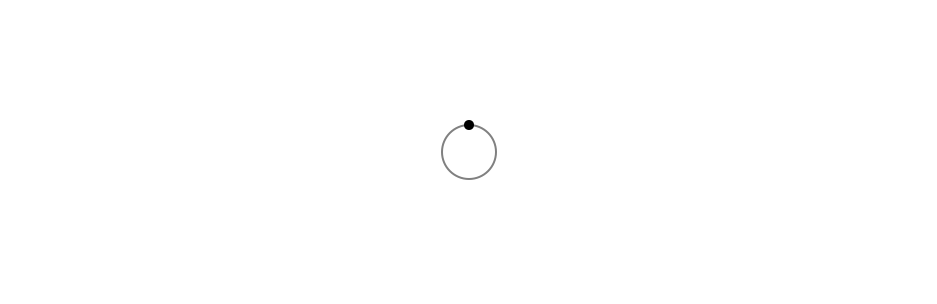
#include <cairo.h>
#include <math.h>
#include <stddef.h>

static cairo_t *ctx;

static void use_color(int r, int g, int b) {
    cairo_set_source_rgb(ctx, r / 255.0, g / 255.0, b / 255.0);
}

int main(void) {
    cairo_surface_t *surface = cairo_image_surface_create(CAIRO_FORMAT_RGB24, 937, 304);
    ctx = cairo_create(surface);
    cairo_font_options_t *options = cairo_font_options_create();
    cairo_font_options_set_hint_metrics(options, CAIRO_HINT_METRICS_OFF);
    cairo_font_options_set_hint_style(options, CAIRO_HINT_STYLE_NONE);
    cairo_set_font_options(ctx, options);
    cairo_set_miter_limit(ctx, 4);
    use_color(255, 255, 255);
    cairo_paint(ctx);
    cairo_arc(ctx, 469, 152, 27, 0, 2 * M_PI);
    use_color(128, 128, 128);
    cairo_stroke(ctx);
    use_color(0, 0, 0);
    cairo_arc(ctx, 469, 125, 5, 0, 2 * M_PI);
    cairo_fill(ctx);
    cairo_surface_write_to_png(surface, "result.png");
    cairo_font_options_destroy(options);
    cairo_destroy(ctx);
    cairo_surface_destroy(surface);
    return 0;
}
